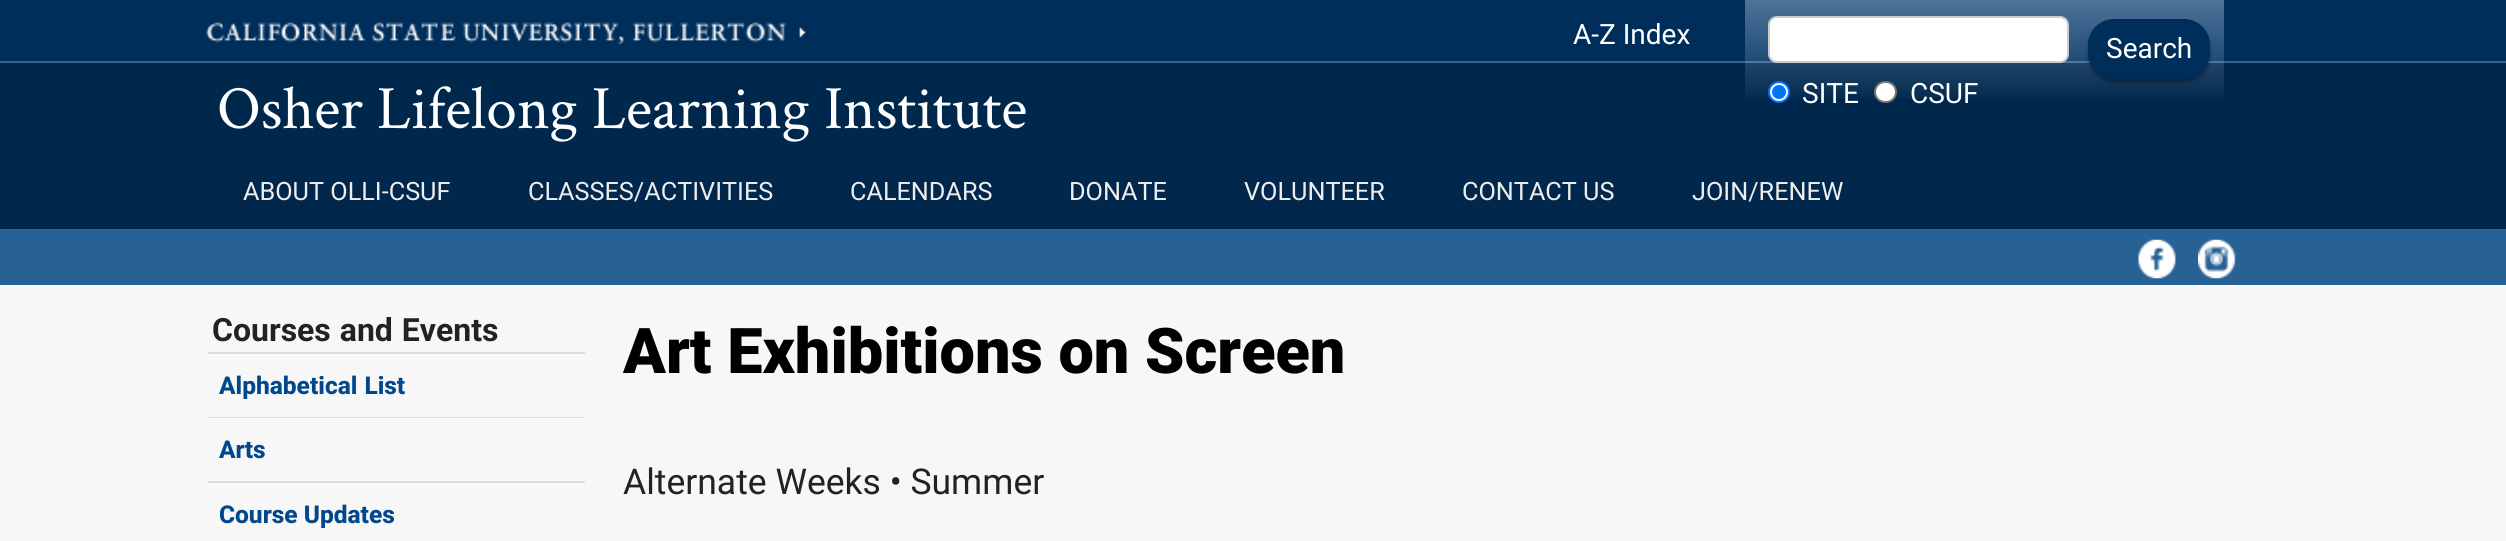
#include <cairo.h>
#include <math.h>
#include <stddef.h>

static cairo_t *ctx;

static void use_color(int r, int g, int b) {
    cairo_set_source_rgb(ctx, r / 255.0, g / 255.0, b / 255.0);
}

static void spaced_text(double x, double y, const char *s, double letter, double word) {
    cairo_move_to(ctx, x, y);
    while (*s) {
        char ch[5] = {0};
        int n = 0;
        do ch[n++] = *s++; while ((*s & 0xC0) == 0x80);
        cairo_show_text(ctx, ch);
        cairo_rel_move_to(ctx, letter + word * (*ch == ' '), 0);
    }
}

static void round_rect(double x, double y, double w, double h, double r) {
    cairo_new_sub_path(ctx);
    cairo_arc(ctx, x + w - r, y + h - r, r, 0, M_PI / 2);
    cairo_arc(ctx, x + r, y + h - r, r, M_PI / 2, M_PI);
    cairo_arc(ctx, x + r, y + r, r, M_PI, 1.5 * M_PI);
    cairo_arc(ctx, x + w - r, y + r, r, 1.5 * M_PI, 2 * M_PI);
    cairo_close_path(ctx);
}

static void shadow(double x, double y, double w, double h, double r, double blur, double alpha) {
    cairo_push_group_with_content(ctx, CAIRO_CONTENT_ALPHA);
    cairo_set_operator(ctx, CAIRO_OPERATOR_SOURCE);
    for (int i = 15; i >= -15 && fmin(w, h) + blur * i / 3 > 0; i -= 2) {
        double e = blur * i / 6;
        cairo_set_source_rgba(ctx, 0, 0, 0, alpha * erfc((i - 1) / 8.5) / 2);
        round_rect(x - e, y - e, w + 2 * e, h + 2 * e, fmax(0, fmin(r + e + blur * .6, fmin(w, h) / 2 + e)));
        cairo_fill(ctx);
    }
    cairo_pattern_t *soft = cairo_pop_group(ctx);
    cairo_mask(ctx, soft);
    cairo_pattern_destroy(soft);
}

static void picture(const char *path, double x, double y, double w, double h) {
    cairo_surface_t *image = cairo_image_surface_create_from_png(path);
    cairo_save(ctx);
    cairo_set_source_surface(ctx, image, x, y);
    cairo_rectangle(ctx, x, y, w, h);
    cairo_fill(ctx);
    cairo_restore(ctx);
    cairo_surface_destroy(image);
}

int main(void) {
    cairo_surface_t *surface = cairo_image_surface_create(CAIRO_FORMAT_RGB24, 2506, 541);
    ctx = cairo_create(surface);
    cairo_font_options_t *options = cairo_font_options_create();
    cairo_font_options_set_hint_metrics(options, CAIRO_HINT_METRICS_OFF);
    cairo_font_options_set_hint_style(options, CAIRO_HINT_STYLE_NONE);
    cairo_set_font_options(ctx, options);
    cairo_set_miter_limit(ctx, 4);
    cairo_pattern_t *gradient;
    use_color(247, 247, 247);
    cairo_paint(ctx);
    use_color(0, 46, 91);
    cairo_rectangle(ctx, 0, 0, 2506, 61);
    cairo_fill(ctx);
    picture("img1.png", 206, 22, 600, 23);
    cairo_select_font_face(ctx, "Roboto", CAIRO_FONT_SLANT_NORMAL, CAIRO_FONT_WEIGHT_NORMAL);
    cairo_set_font_size(ctx, 28);
    use_color(255, 255, 255);
    cairo_move_to(ctx, 1573, 44);
    cairo_show_text(ctx, "A-Z Index");
    use_color(0, 39, 76);
    cairo_rectangle(ctx, 0, 63, 2506, 95);
    cairo_fill(ctx);
    use_color(52, 99, 143);
    cairo_rectangle(ctx, 0, 61, 2506, 2);
    cairo_fill(ctx);
    gradient = cairo_pattern_create_linear(1985, 0, 1985, 105);
    cairo_pattern_add_color_stop_rgba(gradient, 0, 0.765, 0.863, 0.965, 0.4);
    cairo_pattern_add_color_stop_rgba(gradient, 1, 0.765, 0.863, 0.965, 0);
    cairo_set_source(ctx, gradient);
    cairo_pattern_destroy(gradient);
    cairo_rectangle(ctx, 1745, 0, 479, 99);
    cairo_fill(ctx);
    use_color(0, 0, 0);
    shadow(2088, 23, 122, 59, 26, 2, 0.4);
    use_color(0, 46, 91);
    round_rect(2088, 19, 122, 60, 26);
    cairo_fill(ctx);
    use_color(255, 255, 255);
    cairo_move_to(ctx, 2106, 58);
    cairo_show_text(ctx, "Search");
    round_rect(1769, 17, 299, 45, 8);
    cairo_fill_preserve(ctx);
    use_color(204, 204, 204);
    cairo_stroke(ctx);
    use_color(255, 255, 255);
    cairo_arc(ctx, 1779, 92, 10, 0, 2 * M_PI);
    cairo_fill_preserve(ctx);
    use_color(0, 117, 255);
    cairo_stroke(ctx);
    cairo_arc(ctx, 1779, 92, 7, 0, 2 * M_PI);
    cairo_fill(ctx);
    use_color(255, 255, 255);
    cairo_move_to(ctx, 1802, 103);
    cairo_show_text(ctx, "SITE");
    round_rect(1875, 82, 21, 20, 10);
    cairo_fill_preserve(ctx);
    use_color(118, 118, 118);
    cairo_stroke(ctx);
    use_color(255, 255, 255);
    cairo_move_to(ctx, 1910, 103);
    cairo_show_text(ctx, "CSUF");
    cairo_select_font_face(ctx, "Crimson Text", CAIRO_FONT_SLANT_NORMAL, CAIRO_FONT_WEIGHT_NORMAL);
    cairo_set_font_size(ctx, 61.6);
    cairo_move_to(ctx, 217, 128);
    cairo_show_text(ctx, "Osher Lifelong Learning Institute");
    use_color(1, 39, 76);
    cairo_rectangle(ctx, 0, 158, 2506, 71);
    cairo_fill(ctx);
    cairo_select_font_face(ctx, "Roboto", CAIRO_FONT_SLANT_NORMAL, CAIRO_FONT_WEIGHT_NORMAL);
    cairo_set_font_size(ctx, 25.25);
    use_color(238, 238, 238);
    cairo_move_to(ctx, 243, 200);
    cairo_show_text(ctx, "ABOUT OLLI-CSUF");
    cairo_move_to(ctx, 528, 200);
    cairo_show_text(ctx, "CLASSES/ACTIVITIES");
    cairo_move_to(ctx, 850, 200);
    cairo_show_text(ctx, "CALENDARS");
    cairo_move_to(ctx, 1069, 200);
    cairo_show_text(ctx, "DONATE");
    cairo_move_to(ctx, 1244, 200);
    cairo_show_text(ctx, "VOLUNTEER");
    cairo_move_to(ctx, 1462, 200);
    cairo_show_text(ctx, "CONTACT US");
    cairo_move_to(ctx, 1692, 200);
    cairo_show_text(ctx, "JOIN/RENEW");
    use_color(40, 97, 147);
    cairo_rectangle(ctx, 0, 229, 2506, 56);
    cairo_fill(ctx);
    picture("img2.png", 2138, 239, 38, 40);
    picture("img3.png", 2198, 239, 38, 40);
    use_color(221, 221, 221);
    cairo_rectangle(ctx, 208, 352, 377, 2);
    cairo_fill(ctx);
    cairo_select_font_face(ctx, "Roboto", CAIRO_FONT_SLANT_NORMAL, CAIRO_FONT_WEIGHT_BOLD);
    cairo_set_font_size(ctx, 32);
    use_color(34, 34, 34);
    spaced_text(212, 341, "Courses and Events", 0, 1);
    use_color(250, 250, 250);
    cairo_rectangle(ctx, 208, 354, 377, 2);
    cairo_fill(ctx);
    use_color(221, 221, 221);
    cairo_rectangle(ctx, 208, 417, 377, 1);
    cairo_fill(ctx);
    cairo_select_font_face(ctx, "Roboto ExtraBold", CAIRO_FONT_SLANT_NORMAL, CAIRO_FONT_WEIGHT_NORMAL);
    cairo_set_font_size(ctx, 24.5);
    use_color(0, 71, 142);
    spaced_text(219, 394, "Alphabetical List", 0, 1);
    use_color(250, 250, 250);
    cairo_rectangle(ctx, 208, 418, 377, 2);
    cairo_fill(ctx);
    use_color(221, 221, 221);
    cairo_rectangle(ctx, 208, 481, 377, 2);
    cairo_fill(ctx);
    use_color(0, 71, 142);
    cairo_move_to(ctx, 219, 458);
    cairo_show_text(ctx, "Arts");
    use_color(250, 250, 250);
    cairo_rectangle(ctx, 208, 483, 377, 2);
    cairo_fill(ctx);
    use_color(0, 71, 142);
    cairo_move_to(ctx, 219, 523);
    cairo_show_text(ctx, "Course Updates");
    cairo_select_font_face(ctx, "Roboto Black", CAIRO_FONT_SLANT_NORMAL, CAIRO_FONT_WEIGHT_NORMAL);
    cairo_set_font_size(ctx, 63);
    use_color(0, 0, 0);
    cairo_move_to(ctx, 623, 373);
    cairo_show_text(ctx, "Art Exhibitions on Screen");
    cairo_select_font_face(ctx, "Roboto", CAIRO_FONT_SLANT_NORMAL, CAIRO_FONT_WEIGHT_NORMAL);
    cairo_set_font_size(ctx, 35.5);
    use_color(34, 34, 34);
    cairo_move_to(ctx, 623, 494);
    cairo_show_text(ctx, "Alternate Weeks • Summer");
    cairo_surface_write_to_png(surface, "result.png");
    cairo_font_options_destroy(options);
    cairo_destroy(ctx);
    cairo_surface_destroy(surface);
    return 0;
}
